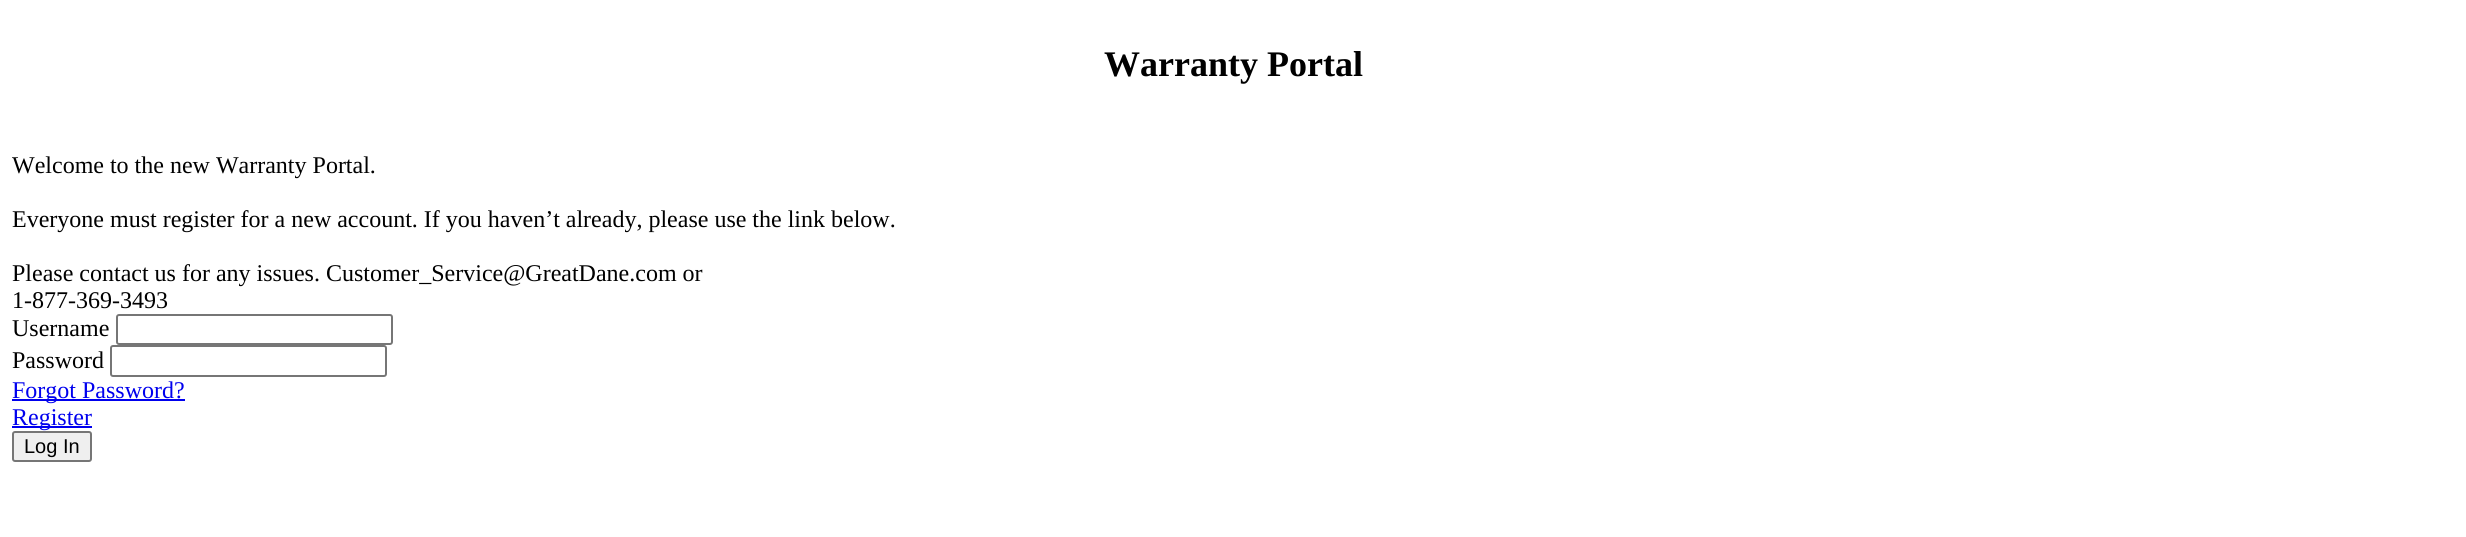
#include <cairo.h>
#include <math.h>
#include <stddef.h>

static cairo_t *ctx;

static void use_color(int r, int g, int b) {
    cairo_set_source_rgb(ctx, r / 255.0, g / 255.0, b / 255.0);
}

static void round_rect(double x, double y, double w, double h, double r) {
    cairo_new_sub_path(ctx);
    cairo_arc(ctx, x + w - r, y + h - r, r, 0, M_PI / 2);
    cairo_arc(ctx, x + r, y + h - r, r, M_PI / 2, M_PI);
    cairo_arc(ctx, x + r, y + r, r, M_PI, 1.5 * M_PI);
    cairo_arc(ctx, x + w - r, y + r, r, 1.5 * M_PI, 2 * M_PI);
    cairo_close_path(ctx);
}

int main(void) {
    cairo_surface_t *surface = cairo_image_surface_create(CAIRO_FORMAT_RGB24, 2466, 537);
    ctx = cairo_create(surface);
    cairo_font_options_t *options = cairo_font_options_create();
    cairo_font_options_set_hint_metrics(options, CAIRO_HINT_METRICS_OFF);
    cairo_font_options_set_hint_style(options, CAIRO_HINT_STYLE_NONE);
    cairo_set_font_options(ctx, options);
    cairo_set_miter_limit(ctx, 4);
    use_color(255, 255, 255);
    cairo_paint(ctx);
    cairo_select_font_face(ctx, "Liberation Serif", CAIRO_FONT_SLANT_NORMAL, CAIRO_FONT_WEIGHT_BOLD);
    cairo_set_font_size(ctx, 36);
    use_color(0, 0, 0);
    cairo_move_to(ctx, 1104, 76);
    cairo_show_text(ctx, "Warranty Portal");
    cairo_select_font_face(ctx, "Liberation Serif", CAIRO_FONT_SLANT_NORMAL, CAIRO_FONT_WEIGHT_NORMAL);
    cairo_set_font_size(ctx, 24);
    cairo_move_to(ctx, 12, 173);
    cairo_show_text(ctx, "Welcome to the new Warranty Portal.");
    cairo_move_to(ctx, 12, 227);
    cairo_show_text(ctx, "Everyone must register for a new account. If you haven’t already, please use the link below.");
    cairo_move_to(ctx, 12, 281);
    cairo_show_text(ctx, "Please contact us for any issues. Customer_Service@GreatDane.com or");
    cairo_move_to(ctx, 12, 308);
    cairo_show_text(ctx, "1-877-369-3493");
    cairo_move_to(ctx, 12, 336);
    cairo_show_text(ctx, "Username");
    round_rect(117, 315, 275, 29, 2);
    use_color(118, 118, 118);
    cairo_stroke(ctx);
    use_color(0, 0, 0);
    cairo_move_to(ctx, 12, 368);
    cairo_show_text(ctx, "Password");
    round_rect(111, 346, 275, 30, 2);
    use_color(118, 118, 118);
    cairo_stroke(ctx);
    use_color(0, 0, 238);
    cairo_rectangle(ctx, 12, 399, 173, 2);
    cairo_fill(ctx);
    cairo_move_to(ctx, 12, 398);
    cairo_show_text(ctx, "Forgot Password?");
    cairo_rectangle(ctx, 12, 426, 80, 2);
    cairo_fill(ctx);
    cairo_move_to(ctx, 12, 425);
    cairo_show_text(ctx, "Register");
    use_color(239, 239, 239);
    round_rect(13, 432, 78, 29, 2);
    cairo_fill_preserve(ctx);
    use_color(118, 118, 118);
    cairo_stroke(ctx);
    cairo_select_font_face(ctx, "Liberation Sans", CAIRO_FONT_SLANT_NORMAL, CAIRO_FONT_WEIGHT_NORMAL);
    cairo_set_font_size(ctx, 20);
    use_color(0, 0, 0);
    cairo_move_to(ctx, 24, 453);
    cairo_show_text(ctx, "Log In");
    cairo_surface_write_to_png(surface, "result.png");
    cairo_font_options_destroy(options);
    cairo_destroy(ctx);
    cairo_surface_destroy(surface);
    return 0;
}
